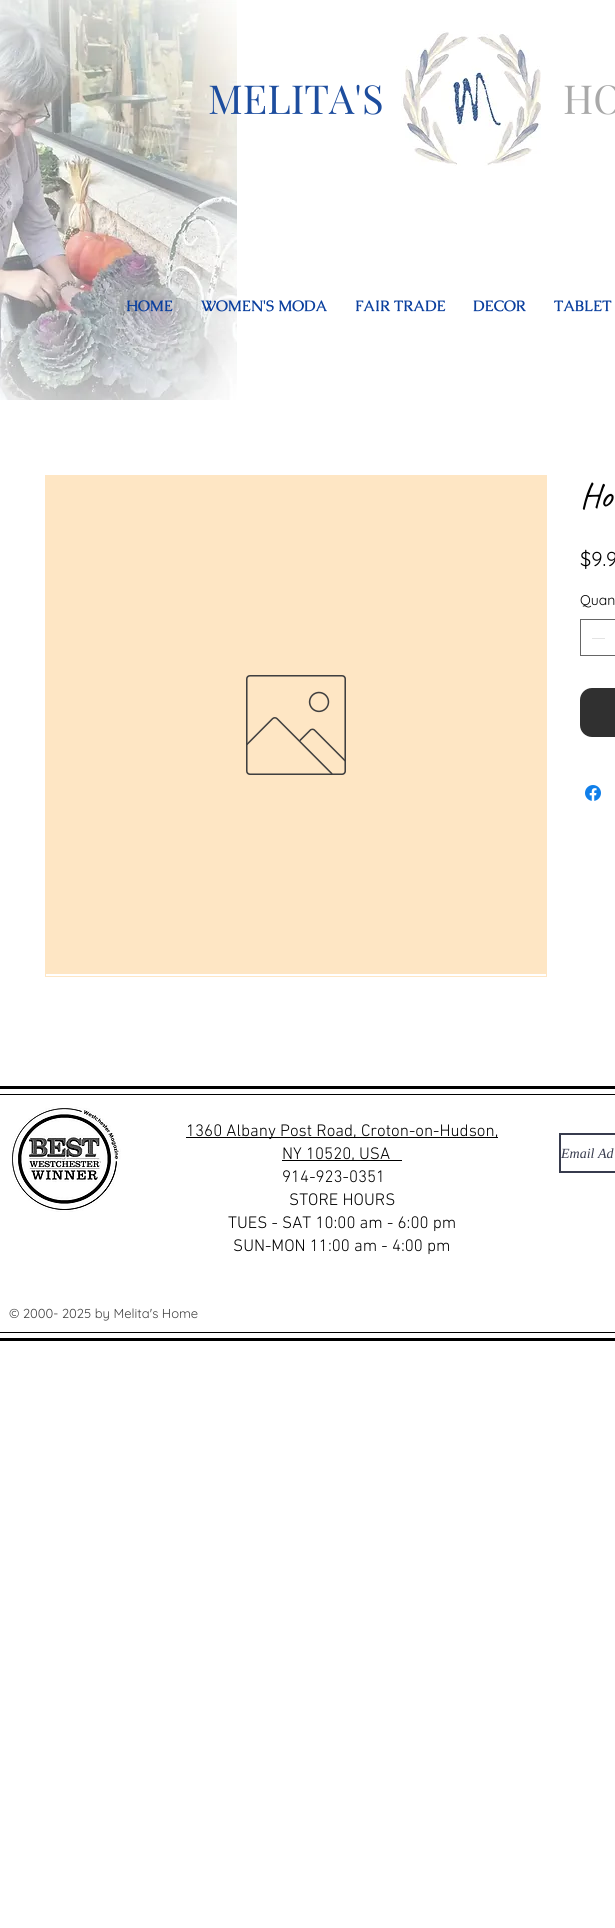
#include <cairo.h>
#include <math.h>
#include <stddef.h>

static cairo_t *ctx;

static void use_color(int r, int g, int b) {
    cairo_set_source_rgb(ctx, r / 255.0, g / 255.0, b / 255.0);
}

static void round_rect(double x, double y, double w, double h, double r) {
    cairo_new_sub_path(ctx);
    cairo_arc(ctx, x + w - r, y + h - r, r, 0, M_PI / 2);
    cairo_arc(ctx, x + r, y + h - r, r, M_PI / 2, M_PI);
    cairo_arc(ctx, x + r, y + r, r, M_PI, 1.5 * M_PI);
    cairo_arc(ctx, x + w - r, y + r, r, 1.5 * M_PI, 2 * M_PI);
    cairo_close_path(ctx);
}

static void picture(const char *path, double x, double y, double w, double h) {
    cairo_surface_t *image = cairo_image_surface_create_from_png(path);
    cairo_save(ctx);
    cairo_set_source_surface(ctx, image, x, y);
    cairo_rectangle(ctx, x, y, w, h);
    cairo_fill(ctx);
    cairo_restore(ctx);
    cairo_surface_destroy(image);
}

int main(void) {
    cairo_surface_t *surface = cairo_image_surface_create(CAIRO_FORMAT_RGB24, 615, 1928);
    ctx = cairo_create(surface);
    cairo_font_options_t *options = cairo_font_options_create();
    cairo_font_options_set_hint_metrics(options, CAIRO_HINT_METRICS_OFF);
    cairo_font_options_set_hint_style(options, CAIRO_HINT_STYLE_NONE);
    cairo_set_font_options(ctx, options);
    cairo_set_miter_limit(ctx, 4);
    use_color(255, 255, 255);
    cairo_paint(ctx);
    picture("img1.png", 0, 0, 237, 400);
    cairo_select_font_face(ctx, "Playfair Display", CAIRO_FONT_SLANT_NORMAL, CAIRO_FONT_WEIGHT_NORMAL);
    cairo_set_font_size(ctx, 40);
    use_color(29, 77, 158);
    cairo_move_to(ctx, 208, 114);
    cairo_show_text(ctx, "MELITA'S");
    picture("img2.png", 401, 31, 140, 135);
    use_color(169, 169, 169);
    cairo_move_to(ctx, 563, 114);
    cairo_show_text(ctx, "HO");
    cairo_select_font_face(ctx, "Caudex", CAIRO_FONT_SLANT_NORMAL, CAIRO_FONT_WEIGHT_BOLD);
    cairo_set_font_size(ctx, 15);
    use_color(10, 63, 158);
    cairo_move_to(ctx, 126, 311);
    cairo_show_text(ctx, "HOME");
    cairo_move_to(ctx, 201, 311);
    cairo_show_text(ctx, "WOMEN'S MODA");
    cairo_move_to(ctx, 355, 311);
    cairo_show_text(ctx, "FAIR TRADE");
    cairo_move_to(ctx, 473, 311);
    cairo_show_text(ctx, "DECOR");
    cairo_move_to(ctx, 554, 311);
    cairo_show_text(ctx, "TABLET");
    cairo_rectangle(ctx, 45.5, 475.5, 501, 501);
    use_color(254, 230, 196);
    cairo_set_line_width(ctx, 1);
    cairo_stroke(ctx);
    cairo_rectangle(ctx, 46, 476, 500, 498);
    cairo_fill(ctx);
    picture("img3.png", 246, 675, 100, 100);
    cairo_select_font_face(ctx, "Caveat", CAIRO_FONT_SLANT_NORMAL, CAIRO_FONT_WEIGHT_NORMAL);
    cairo_set_font_size(ctx, 35);
    use_color(0, 0, 0);
    cairo_move_to(ctx, 580, 507);
    cairo_show_text(ctx, "Ho");
    cairo_select_font_face(ctx, "Quicksand", CAIRO_FONT_SLANT_NORMAL, CAIRO_FONT_WEIGHT_NORMAL);
    cairo_set_font_size(ctx, 20);
    cairo_move_to(ctx, 580, 566);
    cairo_show_text(ctx, "$9.9");
    cairo_set_font_size(ctx, 14);
    cairo_move_to(ctx, 580, 605);
    cairo_show_text(ctx, "Quan");
    cairo_rectangle(ctx, 580.5, 619.5, 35, 36);
    use_color(102, 102, 102);
    cairo_stroke(ctx);
    use_color(227, 227, 227);
    cairo_rectangle(ctx, 592, 638, 13, 1);
    cairo_fill(ctx);
    use_color(48, 48, 48);
    round_rect(580, 688, 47, 49, 12);
    cairo_fill(ctx);
    picture("img4.png", 585, 785, 16, 16);
    use_color(0, 0, 0);
    cairo_rectangle(ctx, 0, 1086, 615, 3);
    cairo_fill(ctx);
    cairo_rectangle(ctx, 0, 1338, 615, 3);
    cairo_fill(ctx);
    cairo_rectangle(ctx, 0, 1094, 615, 1);
    cairo_fill(ctx);
    cairo_rectangle(ctx, 0, 1332, 615, 1);
    cairo_fill(ctx);
    picture("img5.png", 11, 1107, 110, 105);
    cairo_rectangle(ctx, 186, 1137, 312, 1);
    cairo_fill(ctx);
    cairo_select_font_face(ctx, "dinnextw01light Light", CAIRO_FONT_SLANT_NORMAL, CAIRO_FONT_WEIGHT_NORMAL);
    cairo_set_font_size(ctx, 17);
    cairo_move_to(ctx, 186, 1136);
    cairo_show_text(ctx, "1360 Albany Post Road, Croton-on-Hudson,");
    cairo_rectangle(ctx, 282, 1160, 120, 1);
    cairo_fill(ctx);
    cairo_move_to(ctx, 282, 1159);
    cairo_show_text(ctx, "NY 10520, USA");
    cairo_move_to(ctx, 282, 1182);
    cairo_show_text(ctx, "914-923-0351");
    cairo_move_to(ctx, 289, 1205);
    cairo_show_text(ctx, "STORE HOURS");
    cairo_move_to(ctx, 228, 1228);
    cairo_show_text(ctx, "TUES - SAT 10:00 am - 6:00 pm");
    cairo_move_to(ctx, 233, 1251);
    cairo_show_text(ctx, "SUN-MON 11:00 am - 4:00 pm");
    cairo_rectangle(ctx, 560, 1134, 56, 38);
    use_color(55, 59, 77);
    cairo_set_line_width(ctx, 2);
    cairo_stroke(ctx);
    cairo_select_font_face(ctx, "Liberation Serif", CAIRO_FONT_SLANT_ITALIC, CAIRO_FONT_WEIGHT_NORMAL);
    cairo_set_font_size(ctx, 14);
    cairo_move_to(ctx, 561, 1158);
    cairo_show_text(ctx, "Email Ad");
    cairo_select_font_face(ctx, "Quicksand", CAIRO_FONT_SLANT_NORMAL, CAIRO_FONT_WEIGHT_NORMAL);
    cairo_set_font_size(ctx, 13);
    use_color(64, 64, 64);
    cairo_move_to(ctx, 9, 1318);
    cairo_show_text(ctx, "© 2000- 2025 by Melita's Home");
    cairo_surface_write_to_png(surface, "result.png");
    cairo_font_options_destroy(options);
    cairo_destroy(ctx);
    cairo_surface_destroy(surface);
    return 0;
}
